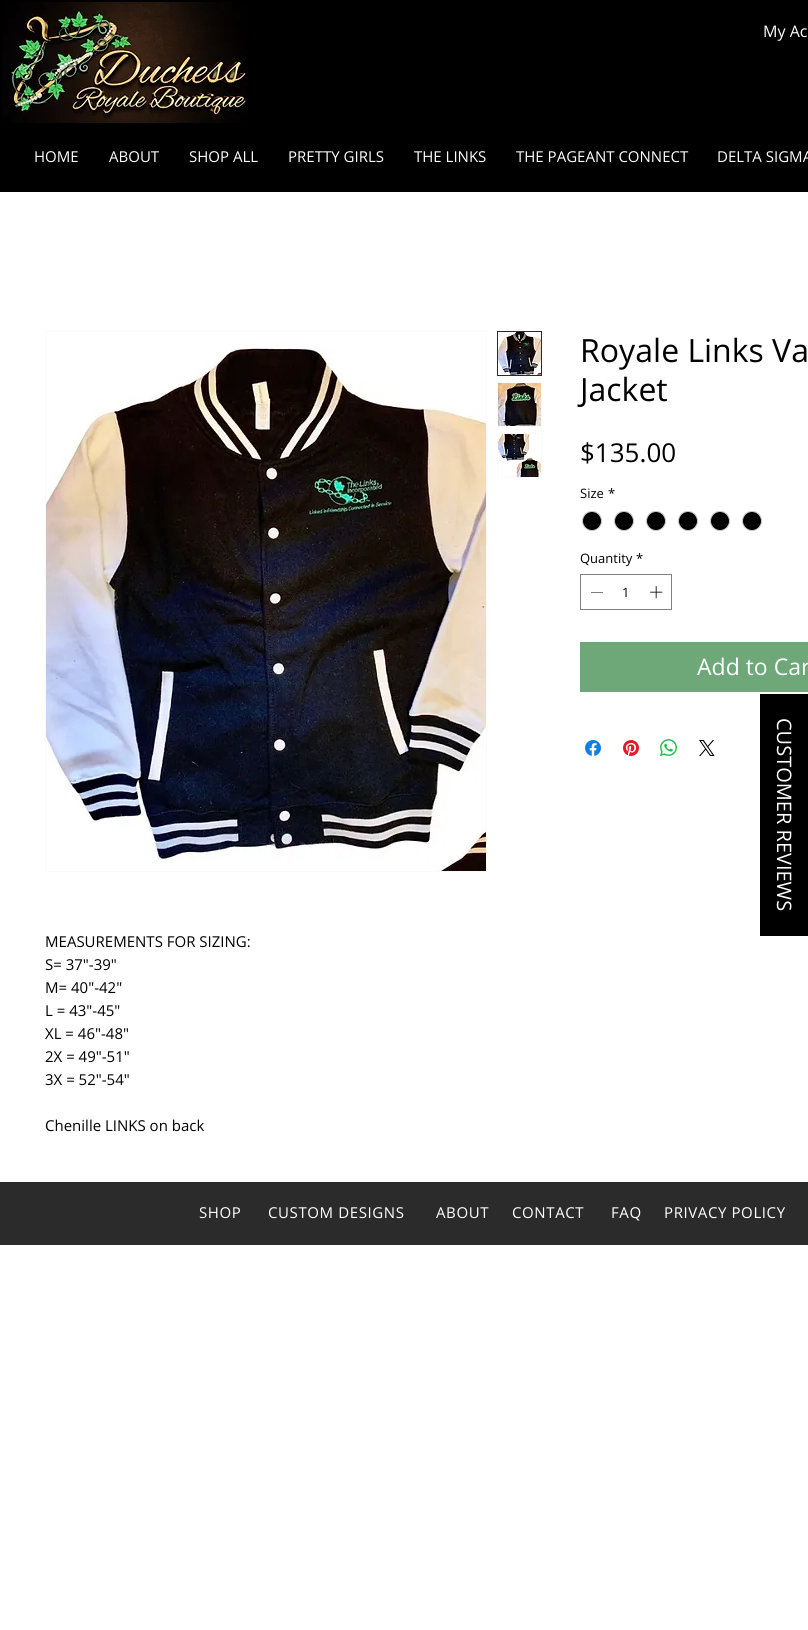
#include <cairo.h>
#include <math.h>
#include <stddef.h>

static cairo_t *ctx;

static void use_color(int r, int g, int b) {
    cairo_set_source_rgb(ctx, r / 255.0, g / 255.0, b / 255.0);
}

static void spaced_text(double x, double y, const char *s, double letter, double word) {
    cairo_move_to(ctx, x, y);
    while (*s) {
        char ch[5] = {0};
        int n = 0;
        do ch[n++] = *s++; while ((*s & 0xC0) == 0x80);
        cairo_show_text(ctx, ch);
        cairo_rel_move_to(ctx, letter + word * (*ch == ' '), 0);
    }
}

static void picture(const char *path, double x, double y, double w, double h) {
    cairo_surface_t *image = cairo_image_surface_create_from_png(path);
    cairo_save(ctx);
    cairo_set_source_surface(ctx, image, x, y);
    cairo_rectangle(ctx, x, y, w, h);
    cairo_fill(ctx);
    cairo_restore(ctx);
    cairo_surface_destroy(image);
}

int main(void) {
    cairo_surface_t *surface = cairo_image_surface_create(CAIRO_FORMAT_RGB24, 808, 1630);
    ctx = cairo_create(surface);
    cairo_font_options_t *options = cairo_font_options_create();
    cairo_font_options_set_hint_metrics(options, CAIRO_HINT_METRICS_OFF);
    cairo_font_options_set_hint_style(options, CAIRO_HINT_STYLE_NONE);
    cairo_set_font_options(ctx, options);
    cairo_set_miter_limit(ctx, 4);
    use_color(255, 255, 255);
    cairo_paint(ctx);
    use_color(0, 0, 0);
    cairo_rectangle(ctx, 0, 0, 808, 192);
    cairo_fill(ctx);
    picture("img1.png", 2, 2, 246, 121);
    cairo_select_font_face(ctx, "Open Sans", CAIRO_FONT_SLANT_NORMAL, CAIRO_FONT_WEIGHT_NORMAL);
    cairo_set_font_size(ctx, 16);
    use_color(255, 255, 255);
    cairo_move_to(ctx, 763, 37);
    cairo_show_text(ctx, "My Ac");
    cairo_set_font_size(ctx, 15);
    cairo_move_to(ctx, 34, 162);
    cairo_show_text(ctx, "HOME");
    cairo_move_to(ctx, 109, 162);
    cairo_show_text(ctx, "ABOUT");
    cairo_move_to(ctx, 189, 162);
    cairo_show_text(ctx, "SHOP ALL");
    cairo_move_to(ctx, 288, 162);
    cairo_show_text(ctx, "PRETTY GIRLS");
    cairo_move_to(ctx, 414, 162);
    cairo_show_text(ctx, "THE LINKS");
    cairo_move_to(ctx, 516, 162);
    cairo_show_text(ctx, "THE PAGEANT CONNECT");
    cairo_move_to(ctx, 717, 162);
    cairo_show_text(ctx, "DELTA SIGMA");
    cairo_set_font_size(ctx, 32);
    use_color(0, 0, 0);
    cairo_move_to(ctx, 580, 362);
    cairo_show_text(ctx, "Royale Links Va");
    cairo_move_to(ctx, 580, 401);
    cairo_show_text(ctx, "Jacket");
    cairo_set_font_size(ctx, 26);
    cairo_move_to(ctx, 580, 462);
    cairo_show_text(ctx, "$135.00");
    cairo_set_font_size(ctx, 13);
    cairo_move_to(ctx, 580, 498);
    cairo_show_text(ctx, "Size");
    cairo_move_to(ctx, 608, 498);
    cairo_show_text(ctx, "*");
    cairo_new_path(ctx);
    cairo_arc(ctx, 592, 521, 9.5, 0, 2 * M_PI);
    cairo_fill_preserve(ctx);
    use_color(201, 201, 201);
    cairo_set_line_width(ctx, 1);
    cairo_stroke(ctx);
    use_color(0, 0, 0);
    cairo_arc(ctx, 624, 521, 9.5, 0, 2 * M_PI);
    cairo_fill_preserve(ctx);
    use_color(201, 201, 201);
    cairo_stroke(ctx);
    use_color(0, 0, 0);
    cairo_arc(ctx, 656, 521, 9.5, 0, 2 * M_PI);
    cairo_fill_preserve(ctx);
    use_color(201, 201, 201);
    cairo_stroke(ctx);
    use_color(0, 0, 0);
    cairo_arc(ctx, 688, 521, 9.5, 0, 2 * M_PI);
    cairo_fill_preserve(ctx);
    use_color(201, 201, 201);
    cairo_stroke(ctx);
    use_color(0, 0, 0);
    cairo_arc(ctx, 720, 521, 9.5, 0, 2 * M_PI);
    cairo_fill_preserve(ctx);
    use_color(201, 201, 201);
    cairo_stroke(ctx);
    use_color(0, 0, 0);
    cairo_arc(ctx, 752, 521, 9.5, 0, 2 * M_PI);
    cairo_fill_preserve(ctx);
    use_color(201, 201, 201);
    cairo_stroke(ctx);
    use_color(0, 0, 0);
    cairo_move_to(ctx, 580, 563);
    cairo_show_text(ctx, "Quantity");
    cairo_move_to(ctx, 636, 563);
    cairo_show_text(ctx, "*");
    cairo_rectangle(ctx, 580.5, 574.5, 91, 35);
    use_color(128, 128, 128);
    cairo_stroke(ctx);
    use_color(0, 0, 0);
    cairo_set_fill_rule(ctx, CAIRO_FILL_RULE_EVEN_ODD);
    cairo_new_path(ctx);
    cairo_move_to(ctx, 603, 592);
    cairo_line_to(ctx, 603, 592.5);
    cairo_line_to(ctx, 591, 592.5);
    cairo_line_to(ctx, 591, 592);
    cairo_close_path(ctx);
    cairo_fill(ctx);
    cairo_move_to(ctx, 622, 597);
    cairo_show_text(ctx, "1");
    picture("img2.png", 650, 586, 13, 13);
    use_color(110, 168, 120);
    cairo_rectangle(ctx, 580, 642, 228, 50);
    cairo_fill(ctx);
    cairo_set_font_size(ctx, 23);
    use_color(255, 255, 255);
    cairo_move_to(ctx, 697, 675);
    cairo_show_text(ctx, "Add to Car");
    picture("img3.png", 585, 740, 16, 16);
    picture("img4.png", 623, 740, 16, 16);
    picture("img5.png", 660, 739, 17, 17);
    picture("img6.png", 699, 740, 16, 16);
    cairo_rectangle(ctx, 45.5, 331.5, 441, 540);
    use_color(250, 250, 250);
    cairo_stroke(ctx);
    picture("img7.png", 46, 348, 440, 523);
    cairo_rectangle(ctx, 497.5, 331.5, 44, 44);
    use_color(43, 43, 43);
    cairo_stroke(ctx);
    picture("img8.png", 498, 332, 43, 43);
    use_color(250, 250, 250);
    cairo_rectangle(ctx, 497, 382, 45, 45);
    cairo_fill(ctx);
    picture("img9.png", 498, 383, 43, 43);
    cairo_rectangle(ctx, 497, 433, 45, 45);
    cairo_fill(ctx);
    picture("img10.png", 498, 434, 43, 43);
    cairo_set_font_size(ctx, 15);
    use_color(0, 0, 0);
    cairo_move_to(ctx, 45, 947);
    cairo_show_text(ctx, "MEASUREMENTS FOR SIZING:");
    cairo_move_to(ctx, 45, 970);
    cairo_show_text(ctx, "S= 37\"-39\"");
    cairo_move_to(ctx, 45, 993);
    cairo_show_text(ctx, "M= 40\"-42\"");
    cairo_move_to(ctx, 45, 1016);
    cairo_show_text(ctx, "L = 43\"-45\"");
    cairo_move_to(ctx, 45, 1039);
    cairo_show_text(ctx, "XL = 46\"-48\"");
    cairo_move_to(ctx, 45, 1062);
    cairo_show_text(ctx, "2X = 49\"-51\"");
    cairo_move_to(ctx, 45, 1085);
    cairo_show_text(ctx, "3X = 52\"-54\"");
    cairo_move_to(ctx, 45, 1131);
    cairo_show_text(ctx, "Chenille LINKS on back");
    cairo_rectangle(ctx, 760, 694, 48, 242);
    cairo_fill(ctx);
    cairo_set_font_size(ctx, 20);
    use_color(255, 255, 255);
    cairo_save(ctx);
    cairo_translate(ctx, 777, 718);
    cairo_rotate(ctx, 90 * M_PI / 180);
    cairo_move_to(ctx, 0, 0);
    cairo_show_text(ctx, "CUSTOMER REVIEWS");
    cairo_restore(ctx);
    use_color(43, 43, 43);
    cairo_rectangle(ctx, 0, 1182, 808, 63);
    cairo_fill(ctx);
    cairo_set_font_size(ctx, 15);
    use_color(255, 255, 255);
    spaced_text(199, 1218, "SHOP", 0.6, 0);
    spaced_text(268, 1218, "CUSTOM DESIGNS", 0.6, 0);
    spaced_text(436, 1218, "ABOUT", 0.6, 0);
    spaced_text(512, 1218, "CONTACT", 0.6, 0);
    spaced_text(611, 1218, "FAQ", 0.6, 0);
    spaced_text(664, 1218, "PRIVACY POLICY", 0.6, 0);
    cairo_surface_write_to_png(surface, "result.png");
    cairo_font_options_destroy(options);
    cairo_destroy(ctx);
    cairo_surface_destroy(surface);
    return 0;
}
